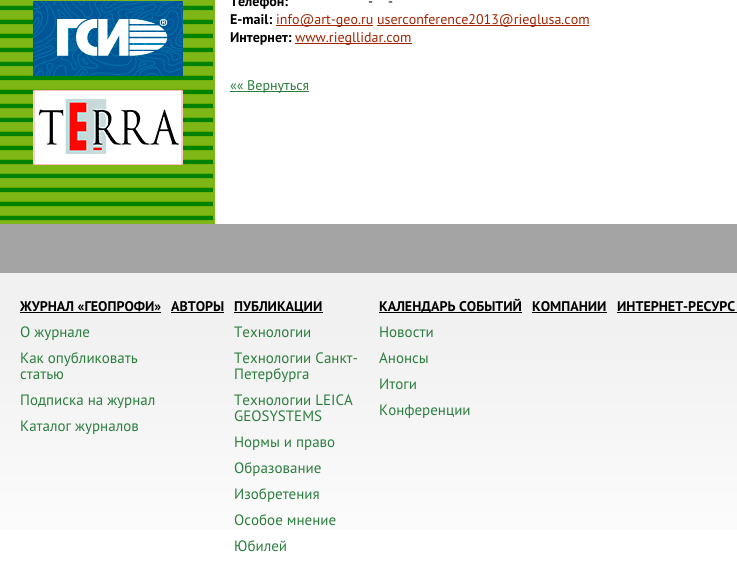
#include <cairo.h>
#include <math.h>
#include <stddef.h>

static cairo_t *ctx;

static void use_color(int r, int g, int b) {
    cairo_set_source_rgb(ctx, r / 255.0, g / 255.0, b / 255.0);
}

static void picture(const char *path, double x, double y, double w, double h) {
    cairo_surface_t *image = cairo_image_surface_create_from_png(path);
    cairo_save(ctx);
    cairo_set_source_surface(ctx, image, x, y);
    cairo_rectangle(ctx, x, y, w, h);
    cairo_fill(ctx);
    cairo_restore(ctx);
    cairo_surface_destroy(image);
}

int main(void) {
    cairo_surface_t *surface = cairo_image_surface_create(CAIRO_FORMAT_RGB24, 737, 562);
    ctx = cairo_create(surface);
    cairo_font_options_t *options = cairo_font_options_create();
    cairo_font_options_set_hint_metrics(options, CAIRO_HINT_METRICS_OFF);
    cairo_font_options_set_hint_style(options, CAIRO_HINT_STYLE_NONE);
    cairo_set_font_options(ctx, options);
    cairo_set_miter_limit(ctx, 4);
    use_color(255, 255, 255);
    cairo_paint(ctx);
    picture("img1.png", 0, 0, 215, 224);
    picture("img2.png", 33, 1, 150, 75);
    picture("img3.png", 33, 90, 150, 75);
    cairo_select_font_face(ctx, "PT Sans", CAIRO_FONT_SLANT_NORMAL, CAIRO_FONT_WEIGHT_BOLD);
    cairo_set_font_size(ctx, 14);
    use_color(0, 0, 0);
    cairo_move_to(ctx, 230, 6);
    cairo_show_text(ctx, "Телефон:");
    cairo_select_font_face(ctx, "PT Sans", CAIRO_FONT_SLANT_NORMAL, CAIRO_FONT_WEIGHT_NORMAL);
    cairo_move_to(ctx, 368, 6);
    cairo_show_text(ctx, "-");
    cairo_move_to(ctx, 388, 6);
    cairo_show_text(ctx, "-");
    cairo_select_font_face(ctx, "PT Sans", CAIRO_FONT_SLANT_NORMAL, CAIRO_FONT_WEIGHT_BOLD);
    cairo_move_to(ctx, 230, 24);
    cairo_show_text(ctx, "E-mail:");
    use_color(162, 35, 1);
    cairo_rectangle(ctx, 276, 25, 97, 1);
    cairo_fill(ctx);
    cairo_select_font_face(ctx, "PT Sans", CAIRO_FONT_SLANT_NORMAL, CAIRO_FONT_WEIGHT_NORMAL);
    cairo_move_to(ctx, 276, 24);
    cairo_show_text(ctx, "info@art-geo.ru");
    cairo_rectangle(ctx, 377, 25, 212, 1);
    cairo_fill(ctx);
    cairo_move_to(ctx, 377, 24);
    cairo_show_text(ctx, "userconference2013@rieglusa.com");
    cairo_select_font_face(ctx, "PT Sans", CAIRO_FONT_SLANT_NORMAL, CAIRO_FONT_WEIGHT_BOLD);
    use_color(0, 0, 0);
    cairo_move_to(ctx, 230, 42);
    cairo_show_text(ctx, "Интернет:");
    use_color(162, 35, 1);
    cairo_rectangle(ctx, 295, 43, 117, 1);
    cairo_fill(ctx);
    cairo_select_font_face(ctx, "PT Sans", CAIRO_FONT_SLANT_NORMAL, CAIRO_FONT_WEIGHT_NORMAL);
    cairo_move_to(ctx, 295, 42);
    cairo_show_text(ctx, "www.riegllidar.com");
    use_color(43, 125, 62);
    cairo_rectangle(ctx, 230, 91, 79, 1);
    cairo_fill(ctx);
    cairo_move_to(ctx, 230, 90);
    cairo_show_text(ctx, "«« Вернуться");
    use_color(165, 164, 164);
    cairo_rectangle(ctx, 0, 224, 737, 49);
    cairo_fill(ctx);
    picture("img4.png", 0, 273, 737, 257);
    cairo_select_font_face(ctx, "PT Sans", CAIRO_FONT_SLANT_NORMAL, CAIRO_FONT_WEIGHT_BOLD);
    use_color(0, 0, 0);
    cairo_move_to(ctx, 20, 311);
    cairo_show_text(ctx, "ЖУРНАЛ «ГЕОПРОФИ»");
    cairo_rectangle(ctx, 20, 312, 141, 1);
    cairo_fill(ctx);
    cairo_select_font_face(ctx, "PT Sans", CAIRO_FONT_SLANT_NORMAL, CAIRO_FONT_WEIGHT_NORMAL);
    cairo_set_font_size(ctx, 15);
    use_color(43, 125, 62);
    cairo_move_to(ctx, 20, 337);
    cairo_show_text(ctx, "О журнале");
    cairo_move_to(ctx, 20, 363);
    cairo_show_text(ctx, "Как опубликовать");
    cairo_move_to(ctx, 20, 379);
    cairo_show_text(ctx, "статью");
    cairo_move_to(ctx, 20, 405);
    cairo_show_text(ctx, "Подписка на журнал");
    cairo_move_to(ctx, 20, 431);
    cairo_show_text(ctx, "Каталог журналов");
    cairo_select_font_face(ctx, "PT Sans", CAIRO_FONT_SLANT_NORMAL, CAIRO_FONT_WEIGHT_BOLD);
    cairo_set_font_size(ctx, 14);
    use_color(0, 0, 0);
    cairo_move_to(ctx, 171, 311);
    cairo_show_text(ctx, "АВТОРЫ");
    cairo_rectangle(ctx, 171, 312, 53, 1);
    cairo_fill(ctx);
    cairo_rectangle(ctx, 234, 312, 89, 1);
    cairo_fill(ctx);
    cairo_move_to(ctx, 234, 311);
    cairo_show_text(ctx, "ПУБЛИКАЦИИ");
    cairo_select_font_face(ctx, "PT Sans", CAIRO_FONT_SLANT_NORMAL, CAIRO_FONT_WEIGHT_NORMAL);
    cairo_set_font_size(ctx, 15);
    use_color(43, 125, 62);
    cairo_move_to(ctx, 234, 337);
    cairo_show_text(ctx, "Технологии");
    cairo_move_to(ctx, 234, 363);
    cairo_show_text(ctx, "Технологии Санкт-");
    cairo_move_to(ctx, 234, 379);
    cairo_show_text(ctx, "Петербурга");
    cairo_move_to(ctx, 234, 405);
    cairo_show_text(ctx, "Технологии LEICA");
    cairo_move_to(ctx, 234, 421);
    cairo_show_text(ctx, "GEOSYSTEMS");
    cairo_move_to(ctx, 234, 447);
    cairo_show_text(ctx, "Нормы и право");
    cairo_move_to(ctx, 234, 473);
    cairo_show_text(ctx, "Образование");
    cairo_move_to(ctx, 234, 499);
    cairo_show_text(ctx, "Изобретения");
    cairo_move_to(ctx, 234, 525);
    cairo_show_text(ctx, "Особое мнение");
    cairo_move_to(ctx, 234, 551);
    cairo_show_text(ctx, "Юбилей");
    use_color(0, 0, 0);
    cairo_rectangle(ctx, 379, 312, 143, 1);
    cairo_fill(ctx);
    cairo_select_font_face(ctx, "PT Sans", CAIRO_FONT_SLANT_NORMAL, CAIRO_FONT_WEIGHT_BOLD);
    cairo_set_font_size(ctx, 14);
    cairo_move_to(ctx, 379, 311);
    cairo_show_text(ctx, "КАЛЕНДАРЬ СОБЫТИЙ");
    cairo_select_font_face(ctx, "PT Sans", CAIRO_FONT_SLANT_NORMAL, CAIRO_FONT_WEIGHT_NORMAL);
    cairo_set_font_size(ctx, 15);
    use_color(43, 125, 62);
    cairo_move_to(ctx, 379, 337);
    cairo_show_text(ctx, "Новости");
    cairo_move_to(ctx, 379, 363);
    cairo_show_text(ctx, "Анонсы");
    cairo_move_to(ctx, 379, 389);
    cairo_show_text(ctx, "Итоги");
    cairo_move_to(ctx, 379, 415);
    cairo_show_text(ctx, "Конференции");
    cairo_select_font_face(ctx, "PT Sans", CAIRO_FONT_SLANT_NORMAL, CAIRO_FONT_WEIGHT_BOLD);
    cairo_set_font_size(ctx, 14);
    use_color(0, 0, 0);
    cairo_move_to(ctx, 532, 311);
    cairo_show_text(ctx, "КОМПАНИИ");
    cairo_rectangle(ctx, 532, 312, 75, 1);
    cairo_fill(ctx);
    cairo_move_to(ctx, 617, 311);
    cairo_show_text(ctx, "ИНТЕРНЕТ-РЕСУРС");
    cairo_rectangle(ctx, 617, 312, 120, 1);
    cairo_fill(ctx);
    cairo_surface_write_to_png(surface, "result.png");
    cairo_font_options_destroy(options);
    cairo_destroy(ctx);
    cairo_surface_destroy(surface);
    return 0;
}
